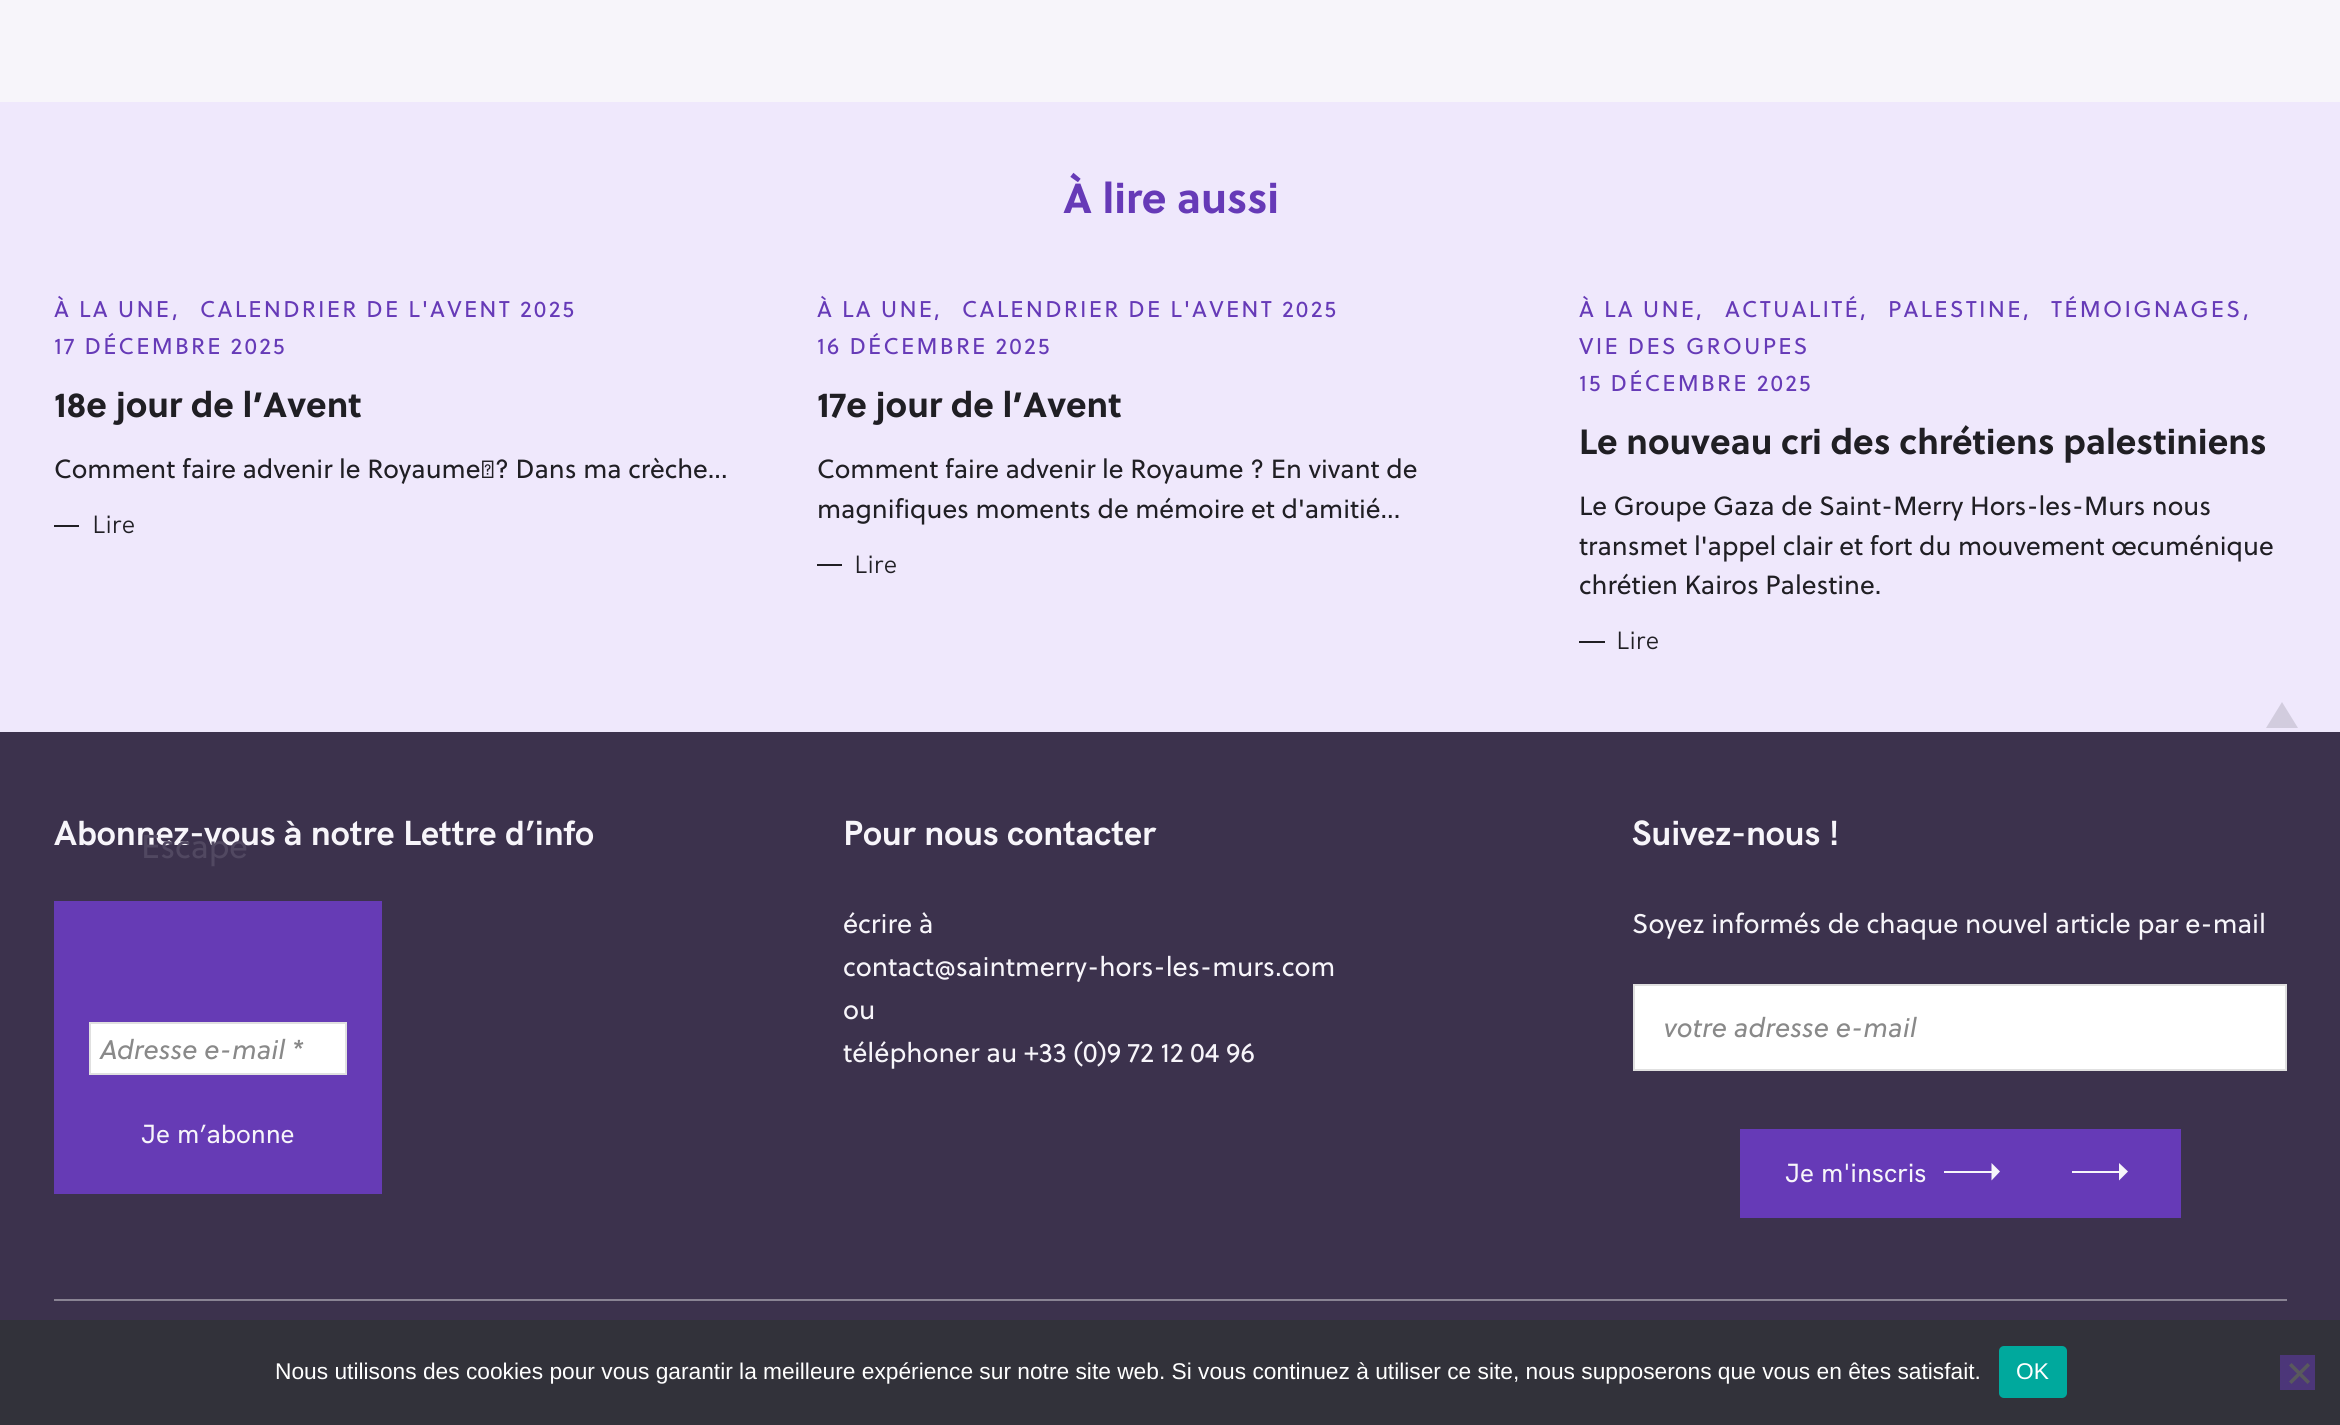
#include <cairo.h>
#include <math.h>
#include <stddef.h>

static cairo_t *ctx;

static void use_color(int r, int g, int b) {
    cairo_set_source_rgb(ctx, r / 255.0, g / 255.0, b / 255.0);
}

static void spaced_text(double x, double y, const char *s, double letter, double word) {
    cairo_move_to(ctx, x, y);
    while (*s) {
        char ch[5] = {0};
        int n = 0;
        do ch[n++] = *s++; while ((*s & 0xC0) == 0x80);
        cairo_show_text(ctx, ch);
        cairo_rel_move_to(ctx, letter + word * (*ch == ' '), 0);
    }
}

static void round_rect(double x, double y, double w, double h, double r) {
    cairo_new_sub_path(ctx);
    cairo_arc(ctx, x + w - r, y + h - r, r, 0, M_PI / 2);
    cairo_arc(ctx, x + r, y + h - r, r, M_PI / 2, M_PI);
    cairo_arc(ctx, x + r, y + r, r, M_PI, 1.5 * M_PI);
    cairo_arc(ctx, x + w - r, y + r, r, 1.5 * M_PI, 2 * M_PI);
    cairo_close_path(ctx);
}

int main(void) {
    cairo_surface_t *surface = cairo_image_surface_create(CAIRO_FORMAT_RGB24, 2340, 1425);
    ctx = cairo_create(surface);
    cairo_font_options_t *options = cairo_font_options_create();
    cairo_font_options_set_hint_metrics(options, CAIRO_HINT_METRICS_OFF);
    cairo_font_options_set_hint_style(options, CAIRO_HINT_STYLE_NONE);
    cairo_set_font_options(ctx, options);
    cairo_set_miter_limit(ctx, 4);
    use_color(247, 245, 250);
    cairo_paint(ctx);
    use_color(239, 232, 252);
    cairo_rectangle(ctx, 0, 102, 2340, 630);
    cairo_fill(ctx);
    cairo_select_font_face(ctx, "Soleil", CAIRO_FONT_SLANT_NORMAL, CAIRO_FONT_WEIGHT_BOLD);
    cairo_set_font_size(ctx, 42);
    use_color(102, 58, 183);
    cairo_move_to(ctx, 1063, 213);
    cairo_show_text(ctx, "À lire aussi");
    cairo_select_font_face(ctx, "Soleil", CAIRO_FONT_SLANT_NORMAL, CAIRO_FONT_WEIGHT_NORMAL);
    cairo_set_font_size(ctx, 22.75);
    spaced_text(54, 317, "À LA UNE", 2.25, 0);
    spaced_text(172, 317, ",", 2.25, 0);
    spaced_text(200, 317, "CALENDRIER DE L'AVENT 2025", 2.25, 0);
    spaced_text(54, 354, "17 DÉCEMBRE 2025", 2.25, 0);
    cairo_select_font_face(ctx, "Soleil", CAIRO_FONT_SLANT_NORMAL, CAIRO_FONT_WEIGHT_BOLD);
    cairo_set_font_size(ctx, 35);
    use_color(32, 31, 36);
    cairo_move_to(ctx, 54, 417);
    cairo_show_text(ctx, "18e jour de l’Avent");
    cairo_select_font_face(ctx, "Soleil", CAIRO_FONT_SLANT_NORMAL, CAIRO_FONT_WEIGHT_NORMAL);
    cairo_set_font_size(ctx, 26.25);
    cairo_move_to(ctx, 54, 478);
    cairo_show_text(ctx, "Comment faire advenir le Royaume ? Dans ma crèche...");
    cairo_rectangle(ctx, 54, 525, 25, 2);
    cairo_fill(ctx);
    cairo_select_font_face(ctx, "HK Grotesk", CAIRO_FONT_SLANT_NORMAL, CAIRO_FONT_WEIGHT_NORMAL);
    cairo_set_font_size(ctx, 25);
    cairo_move_to(ctx, 92, 533);
    cairo_show_text(ctx, "Lire");
    cairo_select_font_face(ctx, "Soleil", CAIRO_FONT_SLANT_NORMAL, CAIRO_FONT_WEIGHT_NORMAL);
    cairo_set_font_size(ctx, 22.75);
    use_color(102, 58, 183);
    spaced_text(817, 317, "À LA UNE", 2.25, 0);
    spaced_text(934, 317, ",", 2.25, 0);
    spaced_text(962, 317, "CALENDRIER DE L'AVENT 2025", 2.25, 0);
    spaced_text(817, 354, "16 DÉCEMBRE 2025", 2.25, 0);
    cairo_select_font_face(ctx, "Soleil", CAIRO_FONT_SLANT_NORMAL, CAIRO_FONT_WEIGHT_BOLD);
    cairo_set_font_size(ctx, 35);
    use_color(32, 31, 36);
    cairo_move_to(ctx, 817, 417);
    cairo_show_text(ctx, "17e jour de l’Avent");
    cairo_select_font_face(ctx, "Soleil", CAIRO_FONT_SLANT_NORMAL, CAIRO_FONT_WEIGHT_NORMAL);
    cairo_set_font_size(ctx, 26.25);
    cairo_move_to(ctx, 817, 478);
    cairo_show_text(ctx, "Comment faire advenir le Royaume ? En vivant de");
    cairo_move_to(ctx, 817, 518);
    cairo_show_text(ctx, "magnifiques moments de mémoire et d'amitié...");
    cairo_rectangle(ctx, 817, 564, 25, 2);
    cairo_fill(ctx);
    cairo_select_font_face(ctx, "HK Grotesk", CAIRO_FONT_SLANT_NORMAL, CAIRO_FONT_WEIGHT_NORMAL);
    cairo_set_font_size(ctx, 25);
    cairo_move_to(ctx, 854, 573);
    cairo_show_text(ctx, "Lire");
    cairo_select_font_face(ctx, "Soleil", CAIRO_FONT_SLANT_NORMAL, CAIRO_FONT_WEIGHT_NORMAL);
    cairo_set_font_size(ctx, 22.75);
    use_color(102, 58, 183);
    spaced_text(1579, 317, "À LA UNE", 2.25, 0);
    spaced_text(1696, 317, ",", 2.25, 0);
    spaced_text(1725, 317, "ACTUALITÉ", 2.25, 0);
    spaced_text(1860, 317, ",", 2.25, 0);
    spaced_text(1888, 317, "PALESTINE", 2.25, 0);
    spaced_text(2023, 317, ",", 2.25, 0);
    spaced_text(2051, 317, "TÉMOIGNAGES", 2.25, 0);
    spaced_text(2243, 317, ",", 2.25, 0);
    spaced_text(1579, 354, "VIE DES GROUPES", 2.25, 0);
    spaced_text(1579, 391, "15 DÉCEMBRE 2025", 2.25, 0);
    cairo_select_font_face(ctx, "Soleil", CAIRO_FONT_SLANT_NORMAL, CAIRO_FONT_WEIGHT_BOLD);
    cairo_set_font_size(ctx, 35);
    use_color(32, 31, 36);
    cairo_move_to(ctx, 1579, 454);
    cairo_show_text(ctx, "Le nouveau cri des chrétiens palestiniens");
    cairo_select_font_face(ctx, "Soleil", CAIRO_FONT_SLANT_NORMAL, CAIRO_FONT_WEIGHT_NORMAL);
    cairo_set_font_size(ctx, 26.25);
    cairo_move_to(ctx, 1579, 515);
    cairo_show_text(ctx, "Le Groupe Gaza de Saint-Merry Hors-les-Murs nous");
    cairo_move_to(ctx, 1579, 555);
    cairo_show_text(ctx, "transmet l'appel clair et fort du mouvement œcuménique");
    cairo_move_to(ctx, 1579, 594);
    cairo_show_text(ctx, "chrétien Kairos Palestine.");
    cairo_rectangle(ctx, 1579, 641, 26, 2);
    cairo_fill(ctx);
    cairo_select_font_face(ctx, "HK Grotesk", CAIRO_FONT_SLANT_NORMAL, CAIRO_FONT_WEIGHT_NORMAL);
    cairo_set_font_size(ctx, 25);
    cairo_move_to(ctx, 1616, 649);
    cairo_show_text(ctx, "Lire");
    use_color(60, 50, 77);
    cairo_rectangle(ctx, 0, 732, 2340, 588);
    cairo_fill(ctx);
    use_color(138, 132, 148);
    cairo_rectangle(ctx, 54, 1299, 2233, 2);
    cairo_fill(ctx);
    use_color(210, 204, 222);
    cairo_new_path(ctx);
    cairo_move_to(ctx, 2298, 728);
    cairo_line_to(ctx, 2266, 728);
    cairo_line_to(ctx, 2282, 702);
    cairo_close_path(ctx);
    cairo_fill(ctx);
    cairo_select_font_face(ctx, "HK Grotesk", CAIRO_FONT_SLANT_NORMAL, CAIRO_FONT_WEIGHT_BOLD);
    cairo_set_font_size(ctx, 34.75);
    use_color(247, 245, 250);
    cairo_move_to(ctx, 54, 845);
    cairo_show_text(ctx, "Abonnez-vous à notre Lettre d’info");
    use_color(102, 59, 181);
    cairo_rectangle(ctx, 54, 901, 328, 293);
    cairo_fill(ctx);
    use_color(255, 255, 255);
    cairo_rectangle(ctx, 90, 1023, 256, 51);
    cairo_fill_preserve(ctx);
    use_color(224, 224, 224);
    cairo_stroke(ctx);
    cairo_select_font_face(ctx, "Soleil", CAIRO_FONT_SLANT_ITALIC, CAIRO_FONT_WEIGHT_NORMAL);
    cairo_set_font_size(ctx, 26.9);
    use_color(137, 137, 137);
    cairo_move_to(ctx, 100, 1059);
    cairo_show_text(ctx, "Adresse e-mail *");
    cairo_select_font_face(ctx, "HK Grotesk Medium", CAIRO_FONT_SLANT_NORMAL, CAIRO_FONT_WEIGHT_NORMAL);
    cairo_set_font_size(ctx, 26.25);
    use_color(247, 245, 250);
    cairo_move_to(ctx, 141, 1143);
    cairo_show_text(ctx, "Je m’abonne");
    cairo_select_font_face(ctx, "HK Grotesk", CAIRO_FONT_SLANT_NORMAL, CAIRO_FONT_WEIGHT_BOLD);
    cairo_set_font_size(ctx, 34.75);
    cairo_move_to(ctx, 843, 845);
    cairo_show_text(ctx, "Pour nous contacter");
    cairo_select_font_face(ctx, "Soleil", CAIRO_FONT_SLANT_NORMAL, CAIRO_FONT_WEIGHT_NORMAL);
    cairo_set_font_size(ctx, 26.9);
    cairo_move_to(ctx, 843, 933);
    cairo_show_text(ctx, "écrire à");
    cairo_move_to(ctx, 843, 976);
    cairo_show_text(ctx, "contact@saintmerry-hors-les-murs.com");
    cairo_move_to(ctx, 843, 1019);
    cairo_show_text(ctx, "ou");
    cairo_move_to(ctx, 843, 1062);
    cairo_show_text(ctx, "téléphoner au +33 (0)9 72 12 04 96");
    cairo_select_font_face(ctx, "HK Grotesk", CAIRO_FONT_SLANT_NORMAL, CAIRO_FONT_WEIGHT_BOLD);
    cairo_set_font_size(ctx, 34.75);
    cairo_move_to(ctx, 1632, 845);
    cairo_show_text(ctx, "Suivez-nous !");
    cairo_select_font_face(ctx, "Soleil", CAIRO_FONT_SLANT_NORMAL, CAIRO_FONT_WEIGHT_NORMAL);
    cairo_set_font_size(ctx, 26.9);
    cairo_move_to(ctx, 1632, 933);
    cairo_show_text(ctx, "Soyez informés de chaque nouvel article par e-mail");
    use_color(255, 255, 255);
    cairo_rectangle(ctx, 1634, 985, 652, 85);
    cairo_fill_preserve(ctx);
    use_color(224, 224, 224);
    cairo_stroke(ctx);
    cairo_select_font_face(ctx, "Soleil", CAIRO_FONT_SLANT_ITALIC, CAIRO_FONT_WEIGHT_NORMAL);
    use_color(137, 137, 137);
    cairo_move_to(ctx, 1664, 1037);
    cairo_show_text(ctx, "votre adresse e-mail");
    use_color(102, 58, 183);
    cairo_rectangle(ctx, 1740, 1129, 441, 89);
    cairo_fill(ctx);
    cairo_select_font_face(ctx, "HK Grotesk Medium", CAIRO_FONT_SLANT_NORMAL, CAIRO_FONT_WEIGHT_NORMAL);
    cairo_set_font_size(ctx, 26.25);
    use_color(247, 245, 250);
    cairo_move_to(ctx, 1785, 1182);
    cairo_show_text(ctx, "Je m'inscris");
    cairo_rectangle(ctx, 1944, 1171, 48, 2);
    cairo_fill(ctx);
    cairo_new_path(ctx);
    cairo_move_to(ctx, 1991.5, 1180.5);
    cairo_line_to(ctx, 1991.5, 1163);
    cairo_line_to(ctx, 2000, 1171.5);
    cairo_close_path(ctx);
    cairo_fill(ctx);
    cairo_rectangle(ctx, 2072, 1171, 47, 2);
    cairo_fill(ctx);
    cairo_new_path(ctx);
    cairo_move_to(ctx, 2119, 1180.5);
    cairo_line_to(ctx, 2119, 1163);
    cairo_line_to(ctx, 2128, 1171.5);
    cairo_close_path(ctx);
    cairo_fill(ctx);
    cairo_select_font_face(ctx, "Soleil", CAIRO_FONT_SLANT_NORMAL, CAIRO_FONT_WEIGHT_NORMAL);
    cairo_set_font_size(ctx, 33);
    use_color(81, 72, 97);
    cairo_move_to(ctx, 141, 858);
    cairo_show_text(ctx, "Escape");
    use_color(50, 50, 58);
    cairo_rectangle(ctx, 0, 1320, 2340, 105);
    cairo_fill(ctx);
    cairo_select_font_face(ctx, "Liberation Sans", CAIRO_FONT_SLANT_NORMAL, CAIRO_FONT_WEIGHT_NORMAL);
    cairo_set_font_size(ctx, 22.75);
    use_color(255, 255, 255);
    cairo_move_to(ctx, 275, 1379);
    cairo_show_text(ctx, "Nous utilisons des cookies pour vous garantir la meilleure expérience sur notre site web. Si vous continuez à utiliser ce site, nous supposerons que vous en êtes satisfait.");
    use_color(0, 169, 157);
    round_rect(1999, 1346, 68, 52, 5);
    cairo_fill(ctx);
    use_color(255, 255, 255);
    cairo_move_to(ctx, 2016, 1379);
    cairo_show_text(ctx, "OK");
    use_color(76, 54, 121);
    cairo_rectangle(ctx, 2280, 1355, 35, 35);
    cairo_fill(ctx);
    use_color(89, 89, 93);
    cairo_new_path(ctx);
    cairo_move_to(ctx, 2307.5, 1363);
    cairo_line_to(ctx, 2310, 1365.5);
    cairo_line_to(ctx, 2291.5, 1384);
    cairo_line_to(ctx, 2289, 1381.5);
    cairo_close_path(ctx);
    cairo_fill(ctx);
    cairo_new_path(ctx);
    cairo_move_to(ctx, 2289, 1365.5);
    cairo_line_to(ctx, 2291.5, 1363);
    cairo_line_to(ctx, 2310, 1381.5);
    cairo_line_to(ctx, 2307.5, 1384);
    cairo_close_path(ctx);
    cairo_fill(ctx);
    cairo_surface_write_to_png(surface, "result.png");
    cairo_font_options_destroy(options);
    cairo_destroy(ctx);
    cairo_surface_destroy(surface);
    return 0;
}
